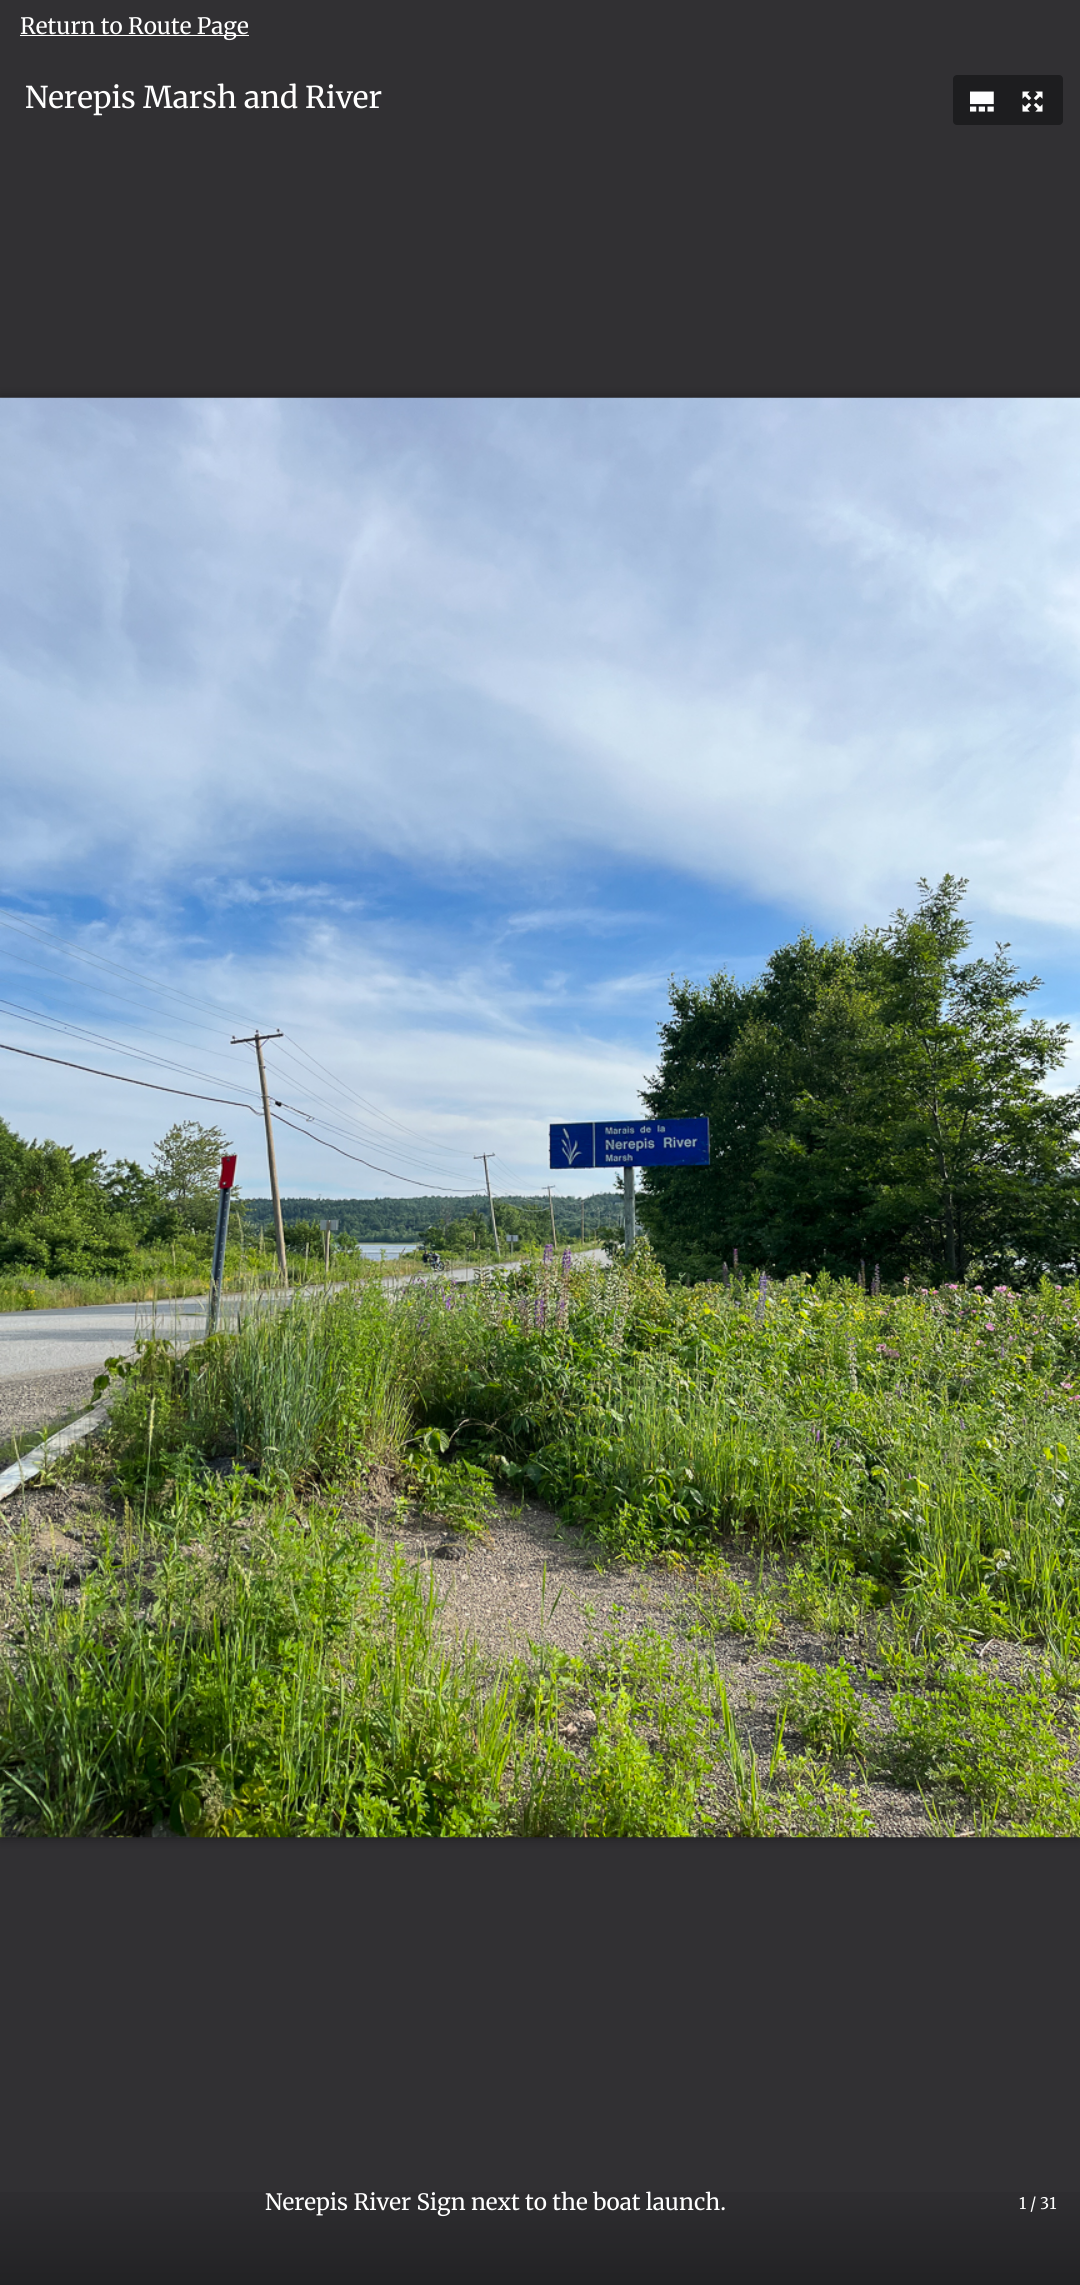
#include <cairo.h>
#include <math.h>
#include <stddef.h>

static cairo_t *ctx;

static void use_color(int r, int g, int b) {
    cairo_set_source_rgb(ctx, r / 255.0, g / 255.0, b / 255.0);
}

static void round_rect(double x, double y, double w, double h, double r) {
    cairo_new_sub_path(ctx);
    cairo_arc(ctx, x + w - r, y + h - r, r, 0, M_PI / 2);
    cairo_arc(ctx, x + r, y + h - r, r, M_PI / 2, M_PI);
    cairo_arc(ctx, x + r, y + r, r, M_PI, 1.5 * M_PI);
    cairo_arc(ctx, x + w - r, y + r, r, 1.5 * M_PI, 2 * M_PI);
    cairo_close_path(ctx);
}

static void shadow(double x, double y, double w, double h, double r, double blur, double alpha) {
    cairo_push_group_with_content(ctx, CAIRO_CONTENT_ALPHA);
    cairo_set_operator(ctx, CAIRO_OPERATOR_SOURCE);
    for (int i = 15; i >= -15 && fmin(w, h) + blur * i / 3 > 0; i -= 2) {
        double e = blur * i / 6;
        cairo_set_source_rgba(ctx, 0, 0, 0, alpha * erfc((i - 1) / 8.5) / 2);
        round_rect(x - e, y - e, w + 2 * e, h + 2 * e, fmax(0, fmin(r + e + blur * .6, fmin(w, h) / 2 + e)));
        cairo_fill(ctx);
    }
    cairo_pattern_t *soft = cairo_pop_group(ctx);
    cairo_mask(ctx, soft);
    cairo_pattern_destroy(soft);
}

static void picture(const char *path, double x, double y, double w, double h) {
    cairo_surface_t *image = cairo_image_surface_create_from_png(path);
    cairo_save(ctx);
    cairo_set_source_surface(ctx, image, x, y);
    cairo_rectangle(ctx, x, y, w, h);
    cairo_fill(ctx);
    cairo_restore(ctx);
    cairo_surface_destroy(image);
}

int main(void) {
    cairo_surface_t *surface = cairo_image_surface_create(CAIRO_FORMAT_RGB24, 1080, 2285);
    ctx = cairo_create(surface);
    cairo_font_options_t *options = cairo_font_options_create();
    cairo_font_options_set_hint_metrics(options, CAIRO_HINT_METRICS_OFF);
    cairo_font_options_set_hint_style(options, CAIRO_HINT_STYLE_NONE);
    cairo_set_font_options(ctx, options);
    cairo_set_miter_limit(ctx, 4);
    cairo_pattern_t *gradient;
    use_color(49, 48, 51);
    cairo_paint(ctx);
    use_color(255, 255, 255);
    cairo_rectangle(ctx, 20, 35, 229, 1);
    cairo_fill(ctx);
    cairo_select_font_face(ctx, "Merriweather", CAIRO_FONT_SLANT_NORMAL, CAIRO_FONT_WEIGHT_NORMAL);
    cairo_set_font_size(ctx, 22.5);
    cairo_move_to(ctx, 20, 34);
    cairo_show_text(ctx, "Return to Route Page");
    cairo_set_font_size(ctx, 30);
    cairo_move_to(ctx, 25, 108);
    cairo_show_text(ctx, "Nerepis Marsh and River");
    use_color(29, 29, 31);
    round_rect(953, 75, 110, 50, 4);
    cairo_fill(ctx);
    picture("img1.png", 970, 91, 24, 21);
    picture("img2.png", 1022, 91, 21, 21);
    use_color(0, 0, 0);
    shadow(0, 398, 1080, 1440, 0, 6, 0.4);
    picture("img3.png", 0, 397, 1080, 1441);
    gradient = cairo_pattern_create_linear(540, 2173, 540, 2285);
    cairo_pattern_add_color_stop_rgba(gradient, 0, 0.192, 0.188, 0.2, 1);
    cairo_pattern_add_color_stop_rgba(gradient, 1, 0.133, 0.133, 0.141, 1);
    cairo_set_source(ctx, gradient);
    cairo_pattern_destroy(gradient);
    cairo_rectangle(ctx, 0, 2192, 1080, 93);
    cairo_fill(ctx);
    cairo_set_font_size(ctx, 22.5);
    use_color(255, 255, 255);
    cairo_move_to(ctx, 265, 2210);
    cairo_show_text(ctx, "Nerepis River Sign next to the boat launch.");
    cairo_set_font_size(ctx, 16);
    cairo_move_to(ctx, 1019, 2209);
    cairo_show_text(ctx, "1 / 31");
    cairo_surface_write_to_png(surface, "result.png");
    cairo_font_options_destroy(options);
    cairo_destroy(ctx);
    cairo_surface_destroy(surface);
    return 0;
}
